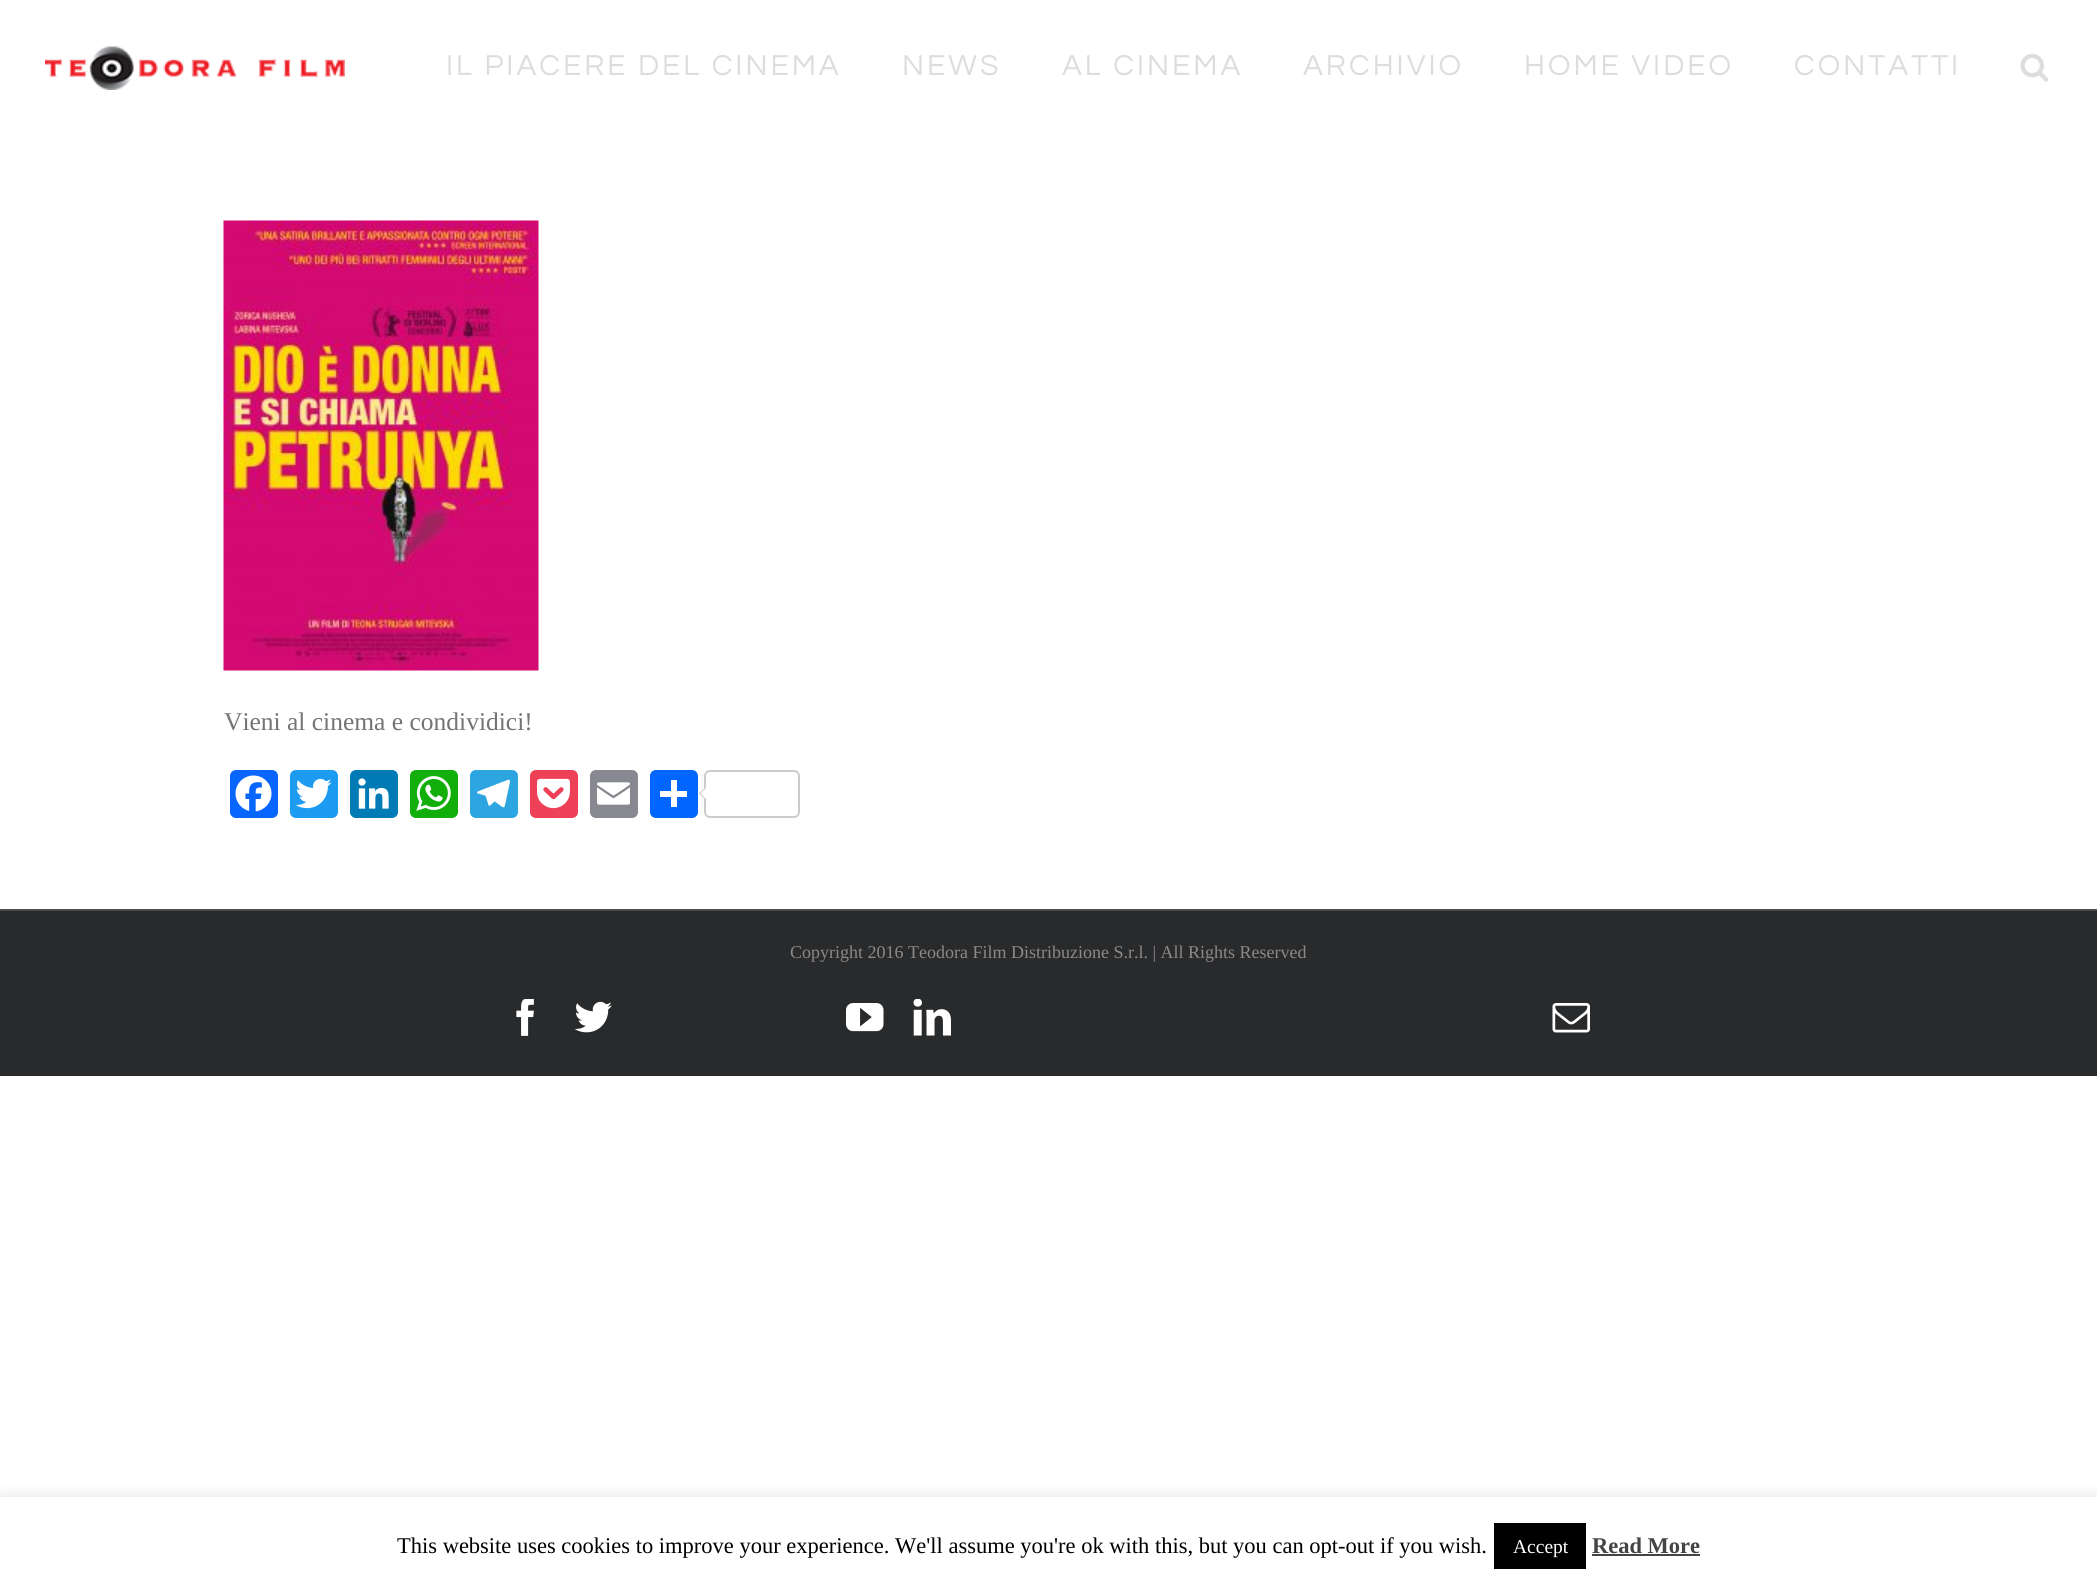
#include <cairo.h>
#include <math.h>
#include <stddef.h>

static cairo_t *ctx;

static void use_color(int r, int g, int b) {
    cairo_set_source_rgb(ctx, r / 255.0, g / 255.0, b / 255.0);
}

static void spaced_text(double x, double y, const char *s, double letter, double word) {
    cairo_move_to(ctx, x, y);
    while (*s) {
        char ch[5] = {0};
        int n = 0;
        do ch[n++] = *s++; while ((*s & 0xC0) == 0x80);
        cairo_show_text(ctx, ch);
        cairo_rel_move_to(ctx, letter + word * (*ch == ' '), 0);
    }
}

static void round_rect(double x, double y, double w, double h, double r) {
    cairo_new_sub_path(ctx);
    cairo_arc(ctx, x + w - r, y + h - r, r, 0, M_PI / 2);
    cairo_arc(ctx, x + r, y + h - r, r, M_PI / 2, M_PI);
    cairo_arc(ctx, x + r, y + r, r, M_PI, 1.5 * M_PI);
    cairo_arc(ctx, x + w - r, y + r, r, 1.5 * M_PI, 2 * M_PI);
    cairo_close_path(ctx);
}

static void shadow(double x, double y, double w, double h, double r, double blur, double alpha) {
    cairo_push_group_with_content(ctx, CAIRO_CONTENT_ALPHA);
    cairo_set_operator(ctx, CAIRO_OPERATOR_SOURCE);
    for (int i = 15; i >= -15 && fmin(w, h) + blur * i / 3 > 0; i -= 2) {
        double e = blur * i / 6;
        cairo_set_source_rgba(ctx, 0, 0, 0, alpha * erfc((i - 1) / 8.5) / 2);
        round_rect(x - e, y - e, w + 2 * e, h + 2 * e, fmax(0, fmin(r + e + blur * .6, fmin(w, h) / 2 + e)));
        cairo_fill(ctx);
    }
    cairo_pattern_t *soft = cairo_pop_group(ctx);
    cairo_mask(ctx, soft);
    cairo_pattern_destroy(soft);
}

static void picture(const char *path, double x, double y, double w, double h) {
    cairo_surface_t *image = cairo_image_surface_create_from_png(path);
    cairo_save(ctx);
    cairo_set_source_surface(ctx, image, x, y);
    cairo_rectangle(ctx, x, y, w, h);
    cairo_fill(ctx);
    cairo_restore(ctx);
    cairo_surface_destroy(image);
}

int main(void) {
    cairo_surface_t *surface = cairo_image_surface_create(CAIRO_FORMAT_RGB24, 2097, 1587);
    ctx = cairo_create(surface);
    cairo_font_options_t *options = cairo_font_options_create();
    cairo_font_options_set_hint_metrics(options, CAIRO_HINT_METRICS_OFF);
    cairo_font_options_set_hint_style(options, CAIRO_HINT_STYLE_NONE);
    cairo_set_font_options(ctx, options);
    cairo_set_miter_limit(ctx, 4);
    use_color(255, 255, 255);
    cairo_paint(ctx);
    picture("img1.png", 45, 46, 300, 44);
    cairo_select_font_face(ctx, "Questrial", CAIRO_FONT_SLANT_NORMAL, CAIRO_FONT_WEIGHT_NORMAL);
    cairo_set_font_size(ctx, 30);
    use_color(221, 221, 221);
    spaced_text(446, 75, "IL PIACERE DEL CINEMA", 3, 0);
    spaced_text(902, 75, "NEWS", 3, 0);
    spaced_text(1062, 75, "AL CINEMA", 3, 0);
    spaced_text(1303, 75, "ARCHIVIO", 3, 0);
    spaced_text(1524, 75, "HOME VIDEO", 3, 0);
    spaced_text(1794, 75, "CONTATTI", 3, 0);
    picture("img2.png", 2020, 53, 29, 29);
    picture("img3.png", 223, 220, 316, 451);
    cairo_select_font_face(ctx, "Liberation Serif", CAIRO_FONT_SLANT_NORMAL, CAIRO_FONT_WEIGHT_NORMAL);
    cairo_set_font_size(ctx, 25.5);
    use_color(116, 116, 116);
    cairo_move_to(ctx, 224, 730);
    cairo_show_text(ctx, "Vieni al cinema e condividici!");
    use_color(8, 102, 255);
    round_rect(230, 770, 48, 48, 6);
    cairo_fill(ctx);
    picture("img4.png", 235, 775, 37, 37);
    use_color(29, 155, 240);
    round_rect(290, 770, 48, 48, 6);
    cairo_fill(ctx);
    picture("img5.png", 295, 778, 37, 31);
    use_color(0, 123, 181);
    round_rect(350, 770, 48, 48, 6);
    cairo_fill(ctx);
    picture("img6.png", 358, 778, 31, 31);
    use_color(18, 175, 10);
    round_rect(410, 770, 48, 48, 6);
    cairo_fill(ctx);
    picture("img7.png", 416, 776, 35, 35);
    use_color(44, 165, 224);
    round_rect(470, 770, 48, 48, 6);
    cairo_fill(ctx);
    picture("img8.png", 477, 779, 33, 29);
    use_color(238, 64, 86);
    round_rect(530, 770, 48, 48, 6);
    cairo_fill(ctx);
    picture("img9.png", 537, 778, 33, 31);
    use_color(136, 137, 144);
    round_rect(590, 770, 48, 48, 6);
    cairo_fill(ctx);
    picture("img10.png", 597, 782, 33, 23);
    use_color(1, 102, 255);
    round_rect(650, 770, 48, 48, 6);
    cairo_fill(ctx);
    use_color(255, 255, 255);
    cairo_rectangle(ctx, 671, 780, 6, 27);
    cairo_fill(ctx);
    cairo_rectangle(ctx, 660, 791, 27, 6);
    cairo_fill(ctx);
    round_rect(705, 771, 94, 46, 5);
    use_color(204, 204, 204);
    cairo_stroke(ctx);
    cairo_new_path(ctx);
    cairo_move_to(ctx, 705, 787.5);
    cairo_line_to(ctx, 705, 799.5);
    cairo_line_to(ctx, 699, 793.5);
    cairo_close_path(ctx);
    cairo_fill(ctx);
    use_color(255, 255, 255);
    cairo_new_path(ctx);
    cairo_move_to(ctx, 706.5, 787.5);
    cairo_line_to(ctx, 706.5, 799.5);
    cairo_line_to(ctx, 700.5, 793.5);
    cairo_close_path(ctx);
    cairo_fill(ctx);
    use_color(40, 42, 43);
    cairo_rectangle(ctx, 0, 911, 2097, 165);
    cairo_fill(ctx);
    use_color(75, 76, 77);
    cairo_rectangle(ctx, 0, 909, 2097, 2);
    cairo_fill(ctx);
    cairo_set_font_size(ctx, 18);
    use_color(140, 137, 137);
    cairo_move_to(ctx, 790, 958);
    cairo_show_text(ctx, "Copyright 2016 Teodora Film Distribuzione S.r.l. | All Rights Reserved");
    picture("img11.png", 516, 999, 18, 37);
    picture("img12.png", 574, 1001, 38, 32);
    picture("img13.png", 846, 1003, 38, 29);
    picture("img14.png", 913, 999, 38, 37);
    picture("img15.png", 1552, 1003, 38, 30);
    cairo_save(ctx);
    cairo_rectangle(ctx, 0, 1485, 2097, 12);
    cairo_clip(ctx);
    use_color(172, 171, 171);
    shadow(0, 1496, 2097, 90, 0, 7.5, 0.3);
    cairo_restore(ctx);
    cairo_set_font_size(ctx, 22.5);
    use_color(0, 0, 0);
    cairo_move_to(ctx, 397, 1553);
    cairo_show_text(ctx, "This website uses cookies to improve your experience. We'll assume you're ok with this, but you can opt-out if you wish.");
    cairo_rectangle(ctx, 1494, 1523, 92, 46);
    cairo_fill(ctx);
    cairo_set_font_size(ctx, 19.5);
    use_color(255, 255, 255);
    cairo_move_to(ctx, 1513, 1553);
    cairo_show_text(ctx, "Accept");
    cairo_select_font_face(ctx, "Liberation Serif", CAIRO_FONT_SLANT_NORMAL, CAIRO_FONT_WEIGHT_BOLD);
    cairo_set_font_size(ctx, 22.5);
    use_color(68, 68, 68);
    cairo_move_to(ctx, 1592, 1553);
    cairo_show_text(ctx, "Read More");
    cairo_rectangle(ctx, 1592, 1554, 108, 2);
    cairo_fill(ctx);
    cairo_surface_write_to_png(surface, "result.png");
    cairo_font_options_destroy(options);
    cairo_destroy(ctx);
    cairo_surface_destroy(surface);
    return 0;
}
